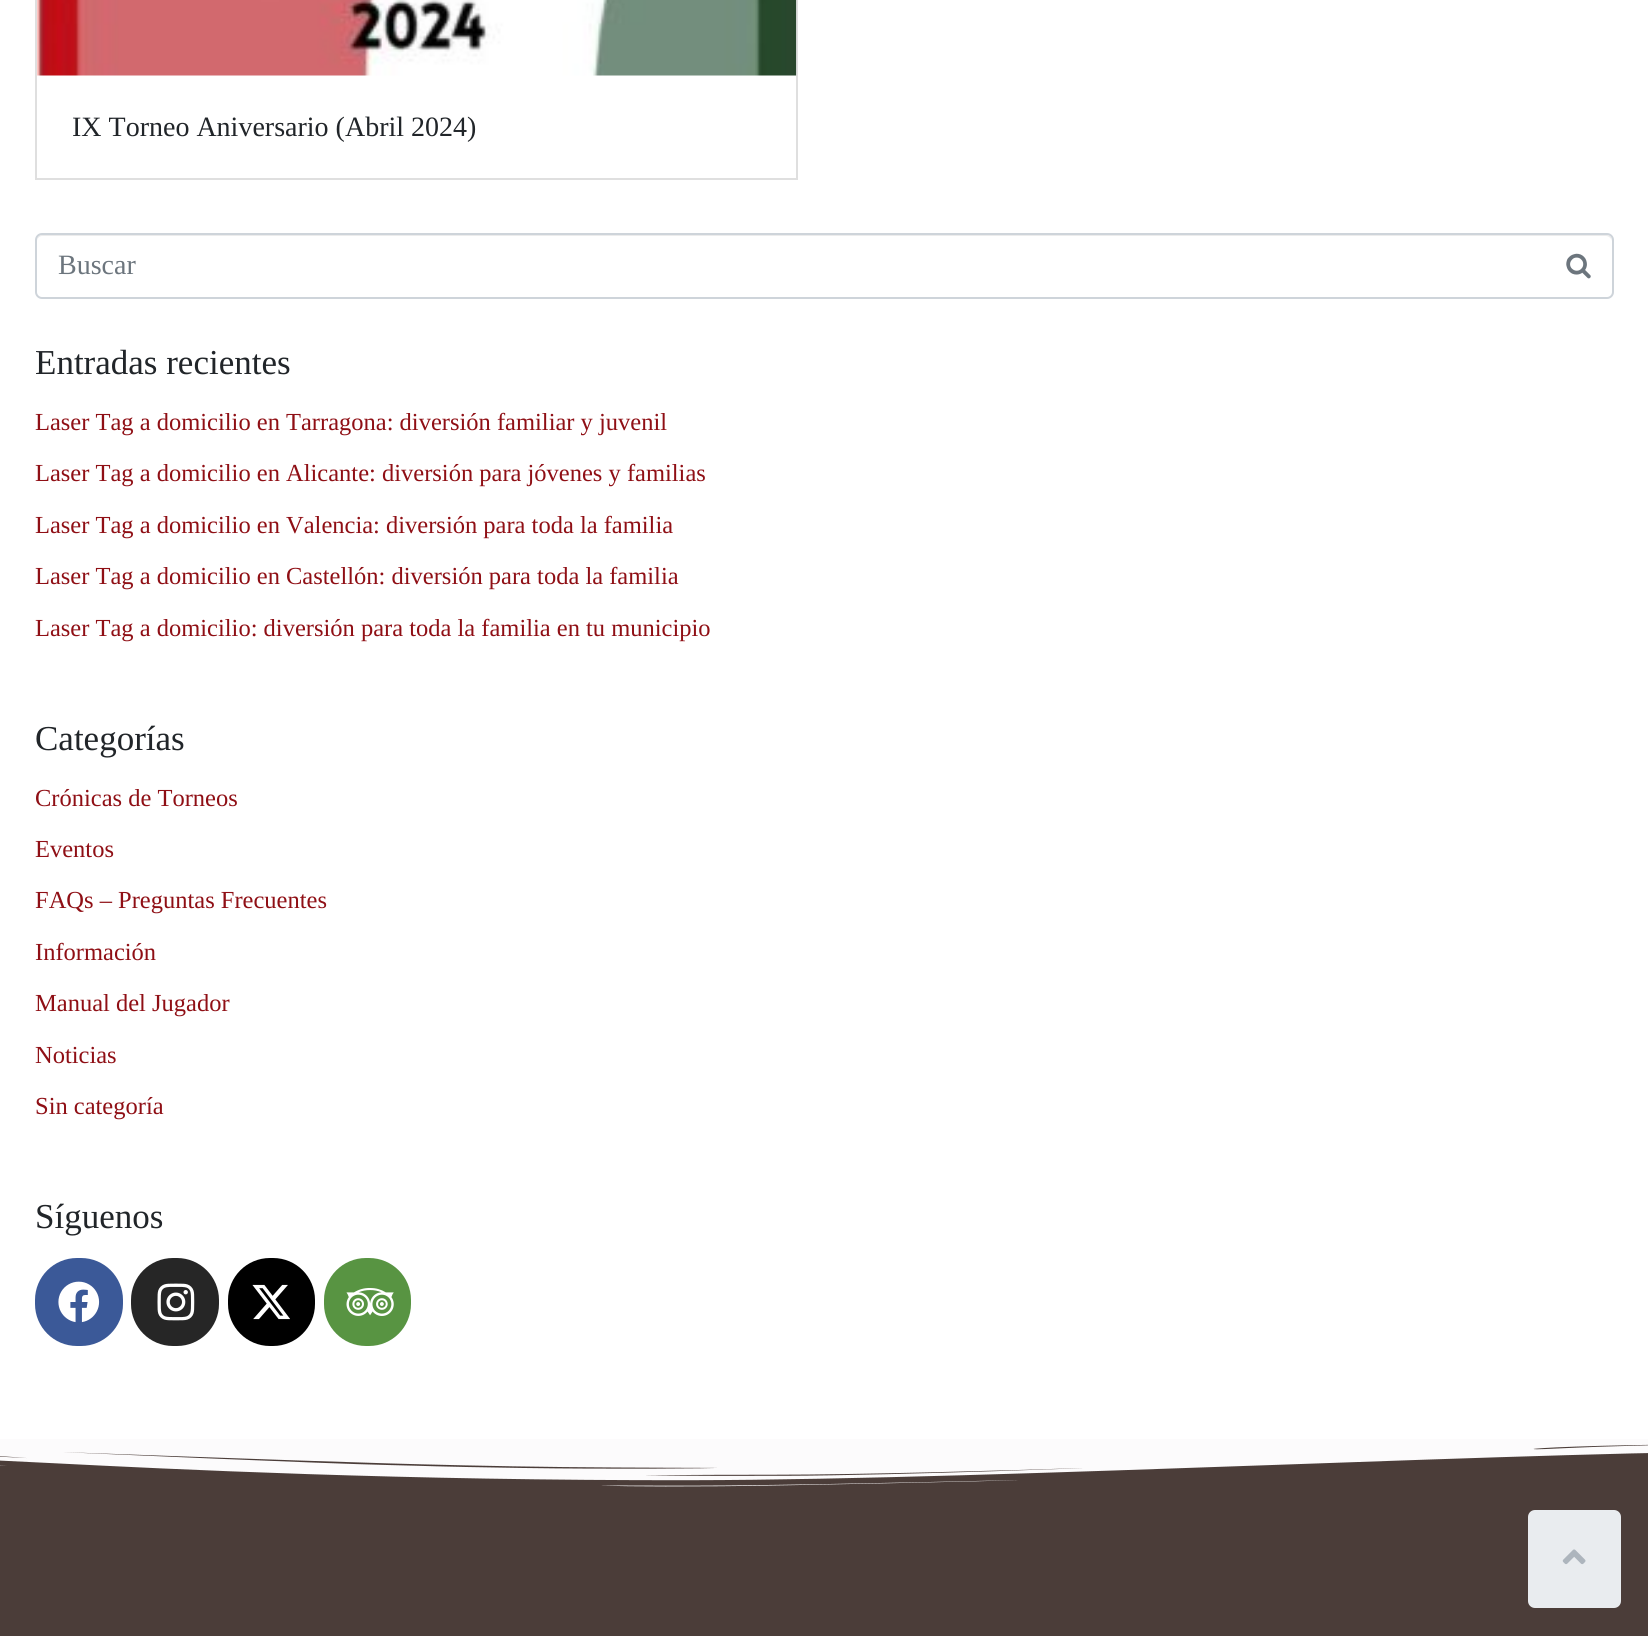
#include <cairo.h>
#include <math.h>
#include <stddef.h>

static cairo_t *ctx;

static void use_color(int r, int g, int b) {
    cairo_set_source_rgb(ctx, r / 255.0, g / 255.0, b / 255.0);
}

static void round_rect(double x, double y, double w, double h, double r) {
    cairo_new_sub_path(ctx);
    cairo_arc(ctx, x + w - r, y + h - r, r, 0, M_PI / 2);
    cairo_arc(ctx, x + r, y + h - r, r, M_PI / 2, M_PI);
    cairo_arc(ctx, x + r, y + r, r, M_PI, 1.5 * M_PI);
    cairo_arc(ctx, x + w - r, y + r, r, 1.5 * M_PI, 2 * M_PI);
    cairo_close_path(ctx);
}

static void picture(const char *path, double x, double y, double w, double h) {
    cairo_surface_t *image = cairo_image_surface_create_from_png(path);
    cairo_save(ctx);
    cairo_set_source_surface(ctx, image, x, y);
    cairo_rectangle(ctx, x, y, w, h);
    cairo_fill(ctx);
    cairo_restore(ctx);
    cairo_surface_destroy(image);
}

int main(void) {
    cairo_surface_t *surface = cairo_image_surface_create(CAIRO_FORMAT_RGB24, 1648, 1636);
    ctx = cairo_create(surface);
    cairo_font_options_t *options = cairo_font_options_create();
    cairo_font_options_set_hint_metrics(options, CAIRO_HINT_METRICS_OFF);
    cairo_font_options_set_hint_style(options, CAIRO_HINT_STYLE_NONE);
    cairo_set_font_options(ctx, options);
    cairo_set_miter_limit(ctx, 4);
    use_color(75, 61, 57);
    cairo_paint(ctx);
    use_color(255, 255, 255);
    cairo_rectangle(ctx, 0, 0, 1648, 1439);
    cairo_fill(ctx);
    cairo_rectangle(ctx, 36, -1, 761, 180);
    use_color(223, 223, 223);
    cairo_stroke(ctx);
    picture("img1.png", 37, 0, 760, 76);
    cairo_select_font_face(ctx, "Liberation Serif", CAIRO_FONT_SLANT_NORMAL, CAIRO_FONT_WEIGHT_NORMAL);
    cairo_set_font_size(ctx, 28);
    use_color(33, 37, 41);
    cairo_move_to(ctx, 72, 136);
    cairo_show_text(ctx, "IX Torneo Aniversario (Abril 2024)");
    use_color(236, 236, 236);
    cairo_new_path(ctx);
    cairo_move_to(ctx, 42, 236);
    cairo_line_to(ctx, 1606, 236);
    cairo_curve_to(ctx, 1609, 236, 1612, 239, 1612, 242);
    cairo_curve_to(ctx, 1612, 239, 1611, 235, 1607, 235);
    cairo_line_to(ctx, 42, 235);
    cairo_curve_to(ctx, 38, 235, 37, 239, 37, 242);
    cairo_curve_to(ctx, 37, 239, 39, 236, 42, 236);
    cairo_close_path(ctx);
    cairo_fill(ctx);
    round_rect(36, 234, 1577, 64, 6);
    use_color(206, 212, 218);
    cairo_stroke(ctx);
    use_color(108, 117, 125);
    cairo_move_to(ctx, 58, 274);
    cairo_show_text(ctx, "Buscar");
    picture("img2.png", 1566, 253, 25, 26);
    cairo_set_font_size(ctx, 35);
    use_color(33, 37, 41);
    cairo_move_to(ctx, 35, 374);
    cairo_show_text(ctx, "Entradas recientes");
    cairo_set_font_size(ctx, 24.5);
    use_color(143, 15, 21);
    cairo_move_to(ctx, 35, 430);
    cairo_show_text(ctx, "Laser Tag a domicilio en Tarragona: diversión familiar y juvenil");
    cairo_move_to(ctx, 35, 481);
    cairo_show_text(ctx, "Laser Tag a domicilio en Alicante: diversión para jóvenes y familias");
    cairo_move_to(ctx, 35, 533);
    cairo_show_text(ctx, "Laser Tag a domicilio en Valencia: diversión para toda la familia");
    cairo_move_to(ctx, 35, 584);
    cairo_show_text(ctx, "Laser Tag a domicilio en Castellón: diversión para toda la familia");
    cairo_move_to(ctx, 35, 636);
    cairo_show_text(ctx, "Laser Tag a domicilio: diversión para toda la familia en tu municipio");
    cairo_set_font_size(ctx, 35);
    use_color(33, 37, 41);
    cairo_move_to(ctx, 35, 750);
    cairo_show_text(ctx, "Categorías");
    cairo_set_font_size(ctx, 24.5);
    use_color(143, 15, 21);
    cairo_move_to(ctx, 35, 806);
    cairo_show_text(ctx, "Crónicas de Torneos");
    cairo_move_to(ctx, 35, 857);
    cairo_show_text(ctx, "Eventos");
    cairo_move_to(ctx, 35, 908);
    cairo_show_text(ctx, "FAQs – Preguntas Frecuentes");
    cairo_move_to(ctx, 35, 960);
    cairo_show_text(ctx, "Información");
    cairo_move_to(ctx, 35, 1011);
    cairo_show_text(ctx, "Manual del Jugador");
    cairo_move_to(ctx, 35, 1063);
    cairo_show_text(ctx, "Noticias");
    cairo_move_to(ctx, 35, 1114);
    cairo_show_text(ctx, "Sin categoría");
    cairo_set_font_size(ctx, 35);
    use_color(33, 37, 41);
    cairo_move_to(ctx, 35, 1228);
    cairo_show_text(ctx, "Síguenos");
    use_color(59, 89, 152);
    round_rect(35, 1258, 88, 88, 42);
    cairo_fill(ctx);
    picture("img3.png", 58, 1281, 42, 42);
    use_color(38, 38, 38);
    round_rect(131, 1258, 88, 88, 42);
    cairo_fill(ctx);
    picture("img4.png", 157, 1283, 38, 38);
    use_color(0, 0, 0);
    round_rect(228, 1258, 87, 88, 42);
    cairo_fill(ctx);
    picture("img5.png", 252, 1284, 38, 36);
    use_color(88, 148, 66);
    round_rect(324, 1258, 87, 88, 42);
    cairo_fill(ctx);
    picture("img6.png", 346, 1288, 48, 28);
    picture("img7.png", 0, 1439, 1648, 48);
    use_color(233, 236, 239);
    round_rect(1529, 1511, 91, 96, 6);
    cairo_fill_preserve(ctx);
    cairo_stroke(ctx);
    picture("img8.png", 1562, 1549, 24, 16);
    cairo_surface_write_to_png(surface, "result.png");
    cairo_font_options_destroy(options);
    cairo_destroy(ctx);
    cairo_surface_destroy(surface);
    return 0;
}
